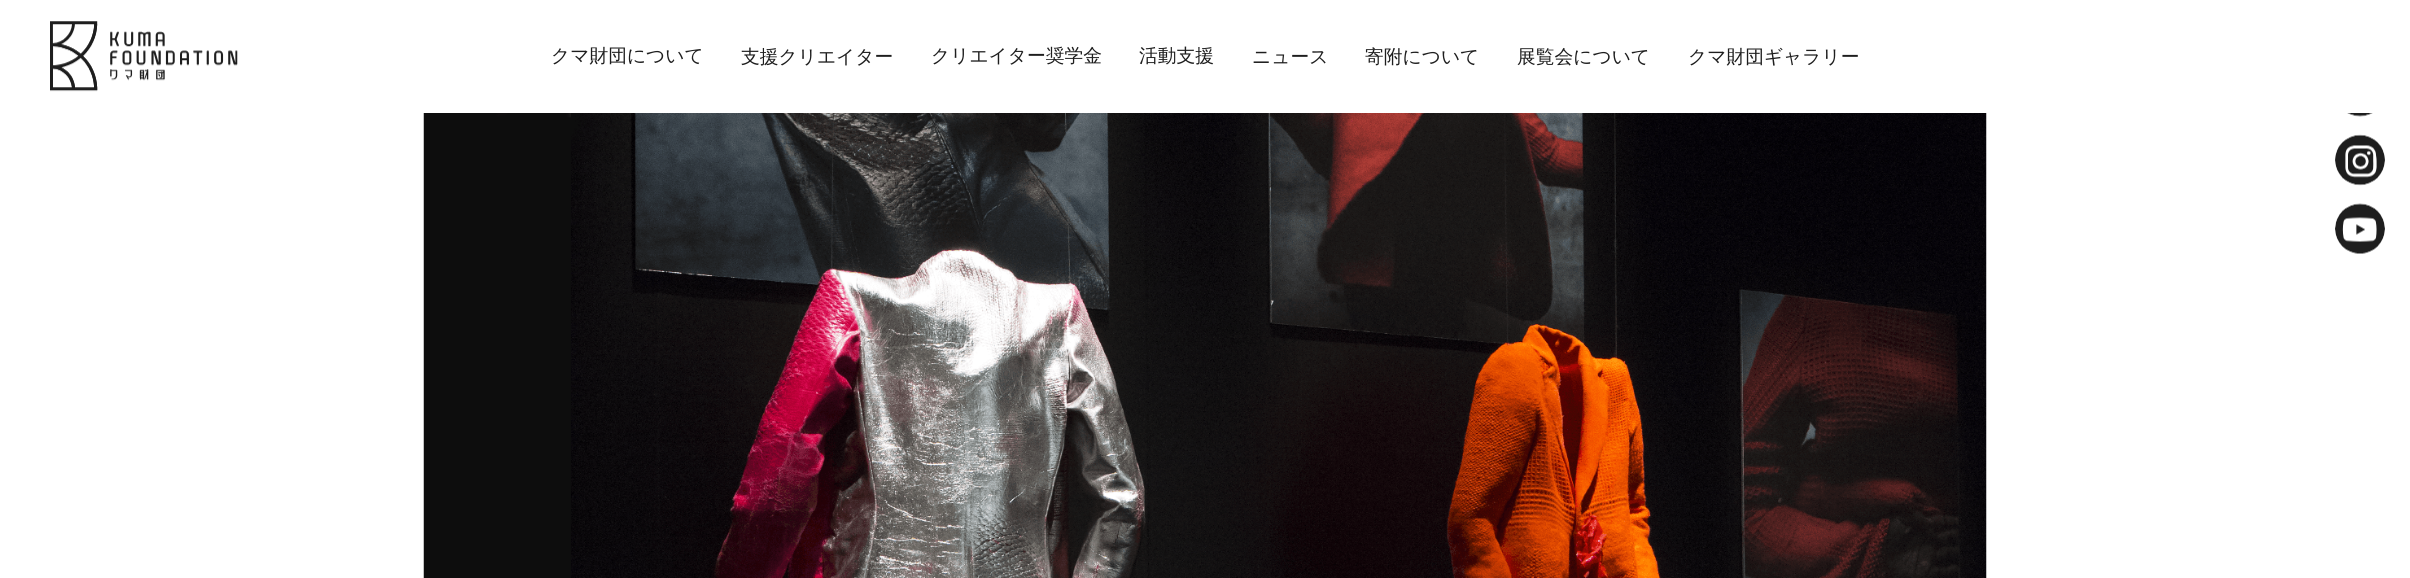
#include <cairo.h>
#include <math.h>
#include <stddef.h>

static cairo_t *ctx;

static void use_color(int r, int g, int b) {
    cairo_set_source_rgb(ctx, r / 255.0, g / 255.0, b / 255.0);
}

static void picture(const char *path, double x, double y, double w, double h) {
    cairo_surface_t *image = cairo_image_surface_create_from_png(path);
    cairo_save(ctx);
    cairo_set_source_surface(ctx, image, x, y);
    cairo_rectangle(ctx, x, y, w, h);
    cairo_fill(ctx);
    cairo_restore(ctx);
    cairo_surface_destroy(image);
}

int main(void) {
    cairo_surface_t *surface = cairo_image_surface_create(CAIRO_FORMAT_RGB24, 2410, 578);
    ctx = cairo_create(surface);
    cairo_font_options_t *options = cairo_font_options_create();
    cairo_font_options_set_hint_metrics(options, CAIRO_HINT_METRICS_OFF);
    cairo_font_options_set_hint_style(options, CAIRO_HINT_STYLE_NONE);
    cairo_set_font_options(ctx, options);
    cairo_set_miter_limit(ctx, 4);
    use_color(255, 255, 255);
    cairo_paint(ctx);
    picture("img1.png", 50, 21, 188, 71);
    cairo_select_font_face(ctx, "WenQuanYi Zen Hei Medium", CAIRO_FONT_SLANT_NORMAL, CAIRO_FONT_WEIGHT_NORMAL);
    cairo_set_font_size(ctx, 18.75);
    use_color(30, 30, 30);
    cairo_move_to(ctx, 551, 62);
    cairo_show_text(ctx, "クマ財団について");
    cairo_move_to(ctx, 741, 63);
    cairo_show_text(ctx, "支援クリエイター");
    cairo_move_to(ctx, 931, 62);
    cairo_show_text(ctx, "クリエイター奨学金");
    cairo_move_to(ctx, 1139, 62);
    cairo_show_text(ctx, "活動支援");
    cairo_move_to(ctx, 1252, 63);
    cairo_show_text(ctx, "ニュース");
    cairo_move_to(ctx, 1365, 63);
    cairo_show_text(ctx, "寄附について");
    cairo_move_to(ctx, 1517, 63);
    cairo_show_text(ctx, "展覧会について");
    cairo_move_to(ctx, 1688, 63);
    cairo_show_text(ctx, "クマ財団ギャラリー");
    picture("img2.png", 423, 113, 1564, 465);
    picture("img3.png", 2347, 113, 26, 4);
    picture("img4.png", 2335, 134, 50, 52);
    picture("img5.png", 2335, 203, 50, 51);
    cairo_surface_write_to_png(surface, "result.png");
    cairo_font_options_destroy(options);
    cairo_destroy(ctx);
    cairo_surface_destroy(surface);
    return 0;
}
